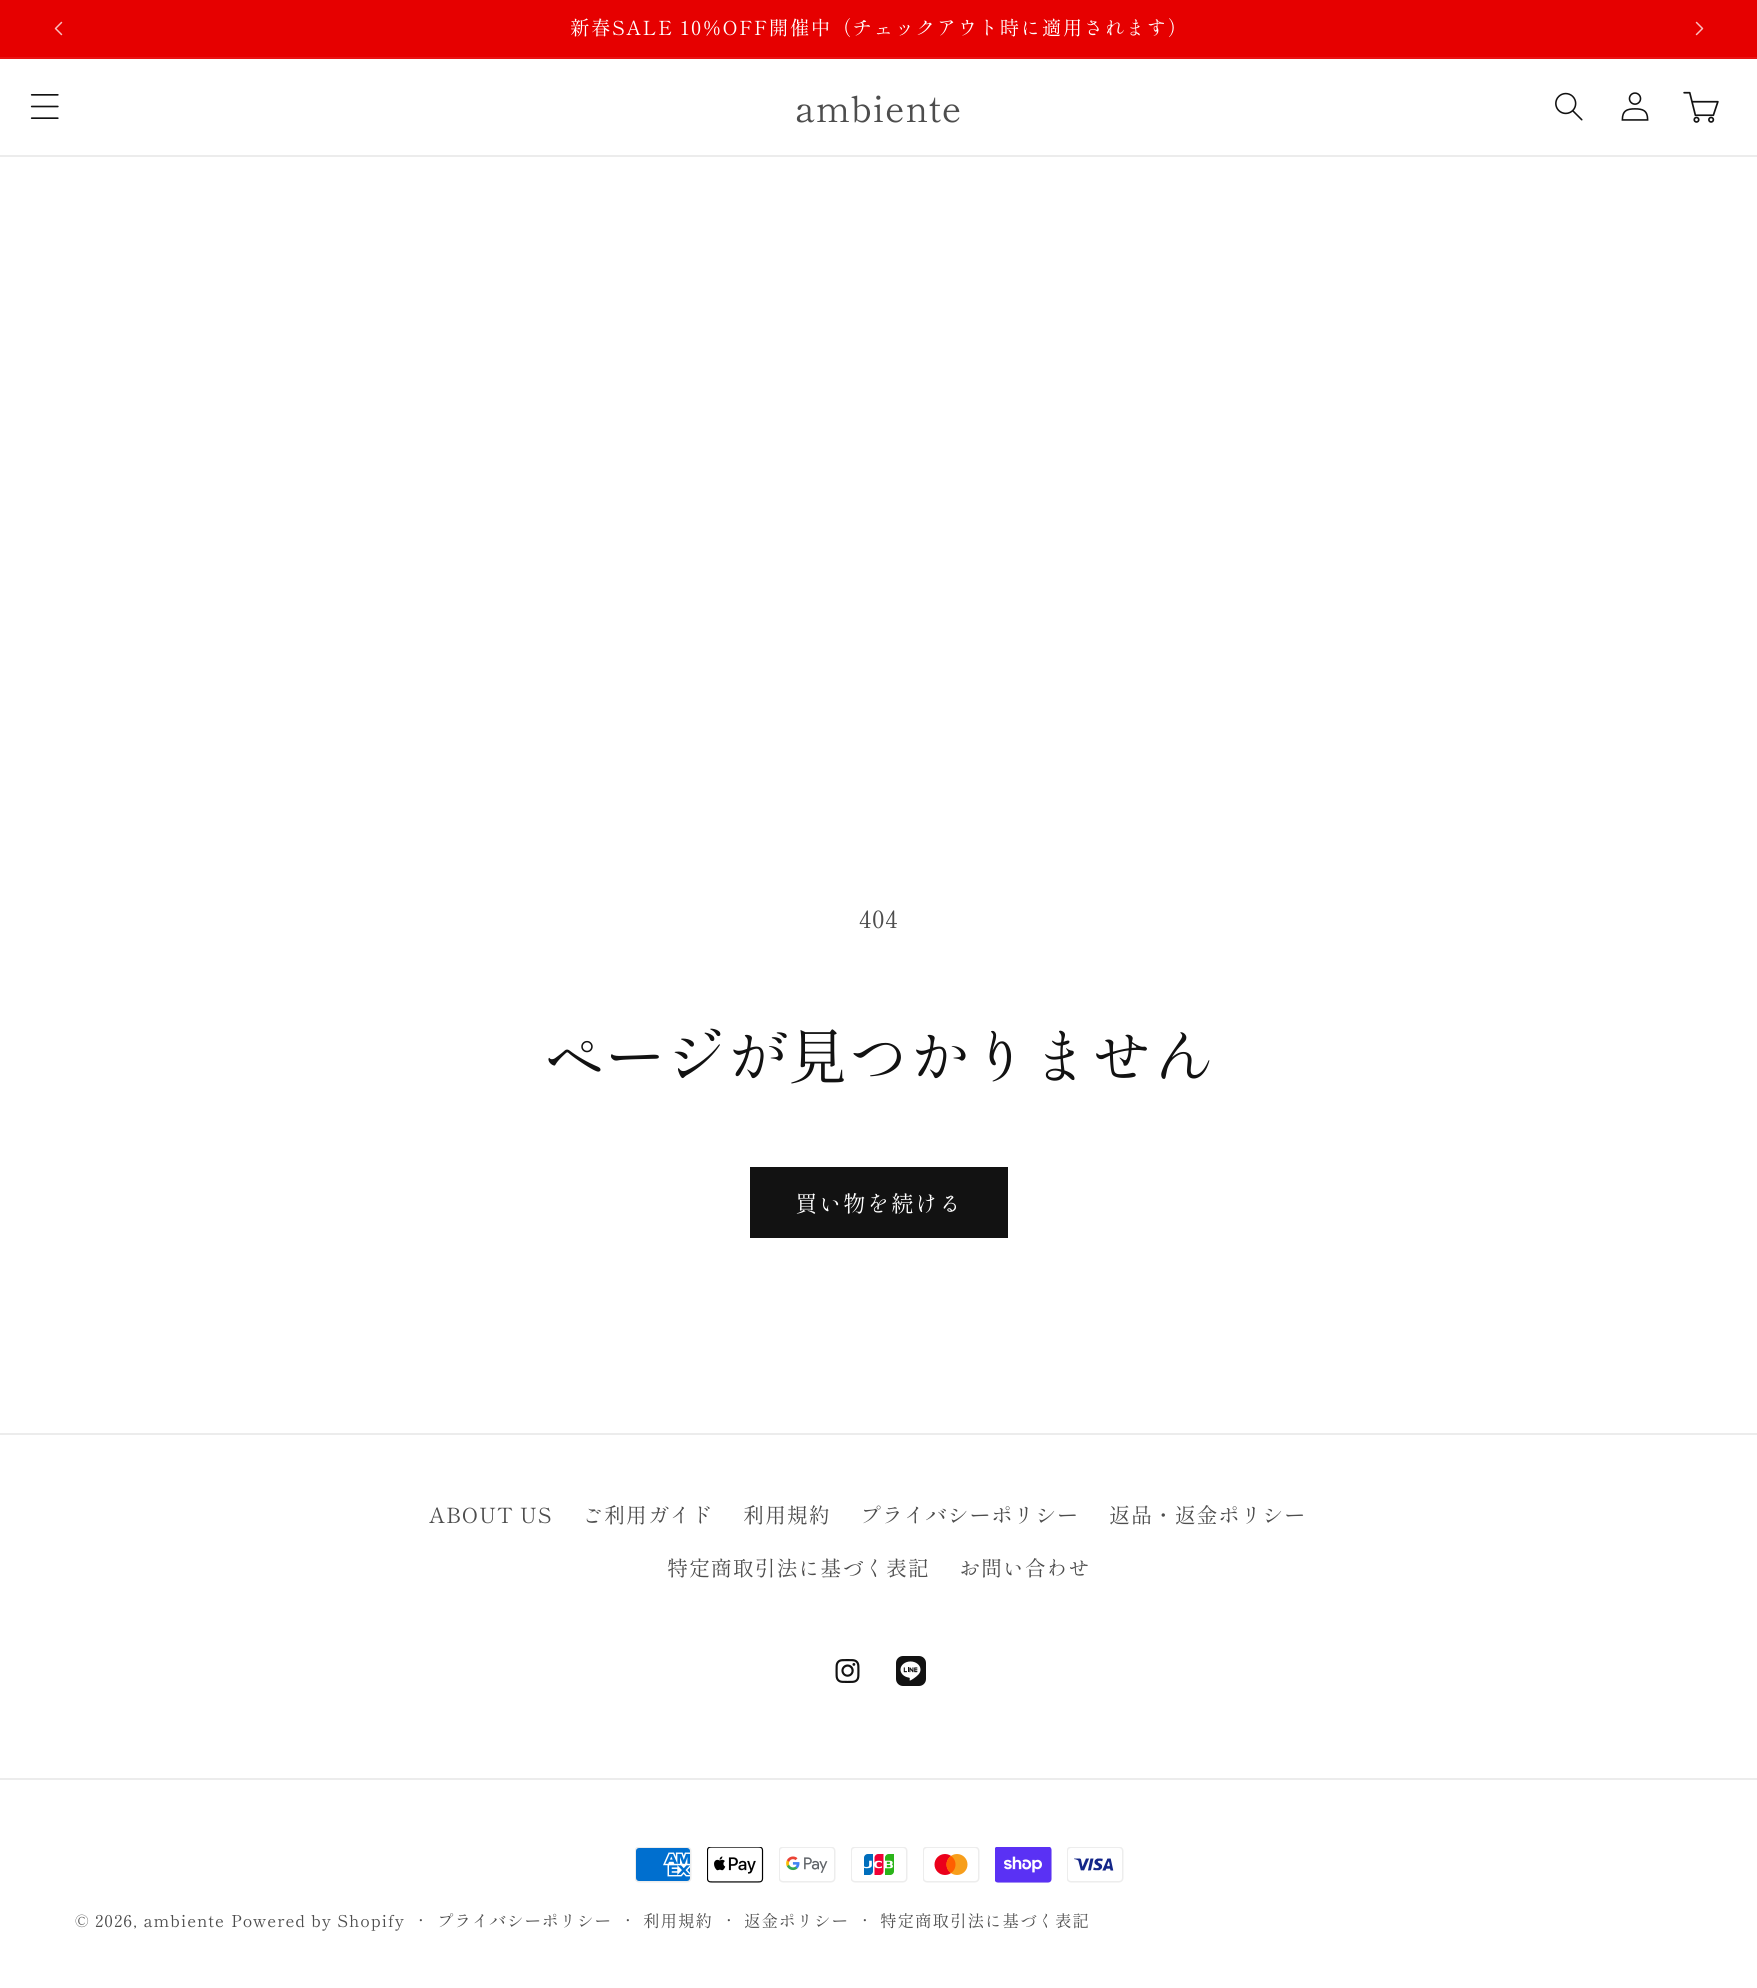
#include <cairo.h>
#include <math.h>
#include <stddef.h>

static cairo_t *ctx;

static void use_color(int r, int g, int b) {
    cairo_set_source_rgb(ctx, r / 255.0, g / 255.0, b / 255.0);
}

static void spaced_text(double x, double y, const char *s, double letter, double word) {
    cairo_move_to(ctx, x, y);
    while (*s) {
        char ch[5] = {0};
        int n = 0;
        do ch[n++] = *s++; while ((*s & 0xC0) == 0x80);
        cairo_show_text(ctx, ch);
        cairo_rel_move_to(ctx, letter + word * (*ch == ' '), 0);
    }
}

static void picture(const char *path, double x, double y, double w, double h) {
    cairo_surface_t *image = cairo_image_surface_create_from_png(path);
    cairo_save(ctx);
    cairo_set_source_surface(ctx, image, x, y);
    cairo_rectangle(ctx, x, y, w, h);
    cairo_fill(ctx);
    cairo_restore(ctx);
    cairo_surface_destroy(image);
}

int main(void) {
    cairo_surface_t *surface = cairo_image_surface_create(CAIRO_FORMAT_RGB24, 1757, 1988);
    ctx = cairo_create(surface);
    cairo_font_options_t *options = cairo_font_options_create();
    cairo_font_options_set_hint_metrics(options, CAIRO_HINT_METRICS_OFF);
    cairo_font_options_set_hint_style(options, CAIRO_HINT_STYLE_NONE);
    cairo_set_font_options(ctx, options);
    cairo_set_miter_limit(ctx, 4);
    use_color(255, 255, 255);
    cairo_paint(ctx);
    use_color(230, 0, 0);
    cairo_rectangle(ctx, 0, 0, 1757, 57);
    cairo_fill(ctx);
    use_color(232, 20, 20);
    cairo_rectangle(ctx, 0, 57, 1757, 2);
    cairo_fill(ctx);
    picture("img1.png", 54, 21, 9, 15);
    cairo_select_font_face(ctx, "Shippori Mincho", CAIRO_FONT_SLANT_NORMAL, CAIRO_FONT_WEIGHT_NORMAL);
    cairo_set_font_size(ctx, 19.5);
    use_color(255, 255, 255);
    spaced_text(570, 35, "新春SALE 10%OFF開催中（チェックアウト時に適用されます）", 1.5, 0);
    picture("img2.png", 1695, 21, 9, 15);
    use_color(236, 236, 236);
    cairo_rectangle(ctx, 0, 155, 1757, 2);
    cairo_fill(ctx);
    picture("img3.png", 30, 94, 29, 25);
    cairo_set_font_size(ctx, 36);
    use_color(77, 77, 77);
    spaced_text(795, 122, "ambiente", 0.9, 0);
    picture("img4.png", 1555, 92, 28, 29);
    picture("img5.png", 1621, 92, 28, 29);
    picture("img6.png", 1683, 91, 36, 32);
    cairo_set_font_size(ctx, 24);
    spaced_text(859, 928, "404", 0.9, 0);
    cairo_set_font_size(ctx, 60);
    use_color(18, 18, 18);
    spaced_text(544, 1079, "ページが見つかりません", 0.9, 0);
    cairo_rectangle(ctx, 750, 1167, 258, 71);
    cairo_fill(ctx);
    cairo_set_font_size(ctx, 22.5);
    use_color(255, 255, 255);
    spaced_text(795, 1212, "買い物を続ける", 1.5, 0);
    use_color(236, 236, 236);
    cairo_rectangle(ctx, 0, 1433, 1757, 2);
    cairo_fill(ctx);
    cairo_set_font_size(ctx, 21);
    use_color(77, 77, 77);
    spaced_text(429, 1523, "ABOUT US", 0.9, 0);
    spaced_text(582, 1523, "ご利用ガイド", 0.9, 0);
    spaced_text(743, 1523, "利用規約", 0.9, 0);
    spaced_text(860, 1523, "プライバシーポリシー", 0.9, 0);
    spaced_text(1109, 1523, "返品・返金ポリシー", 0.9, 0);
    spaced_text(667, 1576, "特定商取引法に基づく表記", 0.9, 0);
    spaced_text(959, 1576, "お問い合わせ", 0.9, 0);
    picture("img7.png", 835, 1659, 25, 24);
    picture("img8.png", 896, 1656, 30, 30);
    use_color(236, 236, 236);
    cairo_rectangle(ctx, 0, 1778, 1757, 2);
    cairo_fill(ctx);
    picture("img9.png", 635, 1847, 57, 36);
    picture("img10.png", 707, 1847, 57, 36);
    picture("img11.png", 779, 1847, 57, 36);
    picture("img12.png", 851, 1847, 57, 36);
    picture("img13.png", 923, 1847, 57, 36);
    picture("img14.png", 995, 1847, 57, 36);
    picture("img15.png", 1067, 1847, 57, 36);
    cairo_set_font_size(ctx, 16.5);
    use_color(77, 77, 77);
    spaced_text(75, 1927, "© 2026, ambiente", 1, 0);
    spaced_text(231, 1927, "Powered by Shopify", 1, 0);
    cairo_set_font_size(ctx, 18);
    spaced_text(418, 1927, "·", 1, 0);
    cairo_set_font_size(ctx, 16.5);
    spaced_text(437, 1927, "プライバシーポリシー", 1, 0);
    cairo_set_font_size(ctx, 18);
    spaced_text(625, 1927, "·", 1, 0);
    cairo_set_font_size(ctx, 16.5);
    spaced_text(643, 1927, "利用規約", 1, 0);
    cairo_set_font_size(ctx, 18);
    spaced_text(726, 1927, "·", 1, 0);
    cairo_set_font_size(ctx, 16.5);
    spaced_text(744, 1927, "返金ポリシー", 1, 0);
    cairo_set_font_size(ctx, 18);
    spaced_text(862, 1927, "·", 1, 0);
    cairo_set_font_size(ctx, 16.5);
    spaced_text(880, 1927, "特定商取引法に基づく表記", 1, 0);
    cairo_surface_write_to_png(surface, "result.png");
    cairo_font_options_destroy(options);
    cairo_destroy(ctx);
    cairo_surface_destroy(surface);
    return 0;
}
